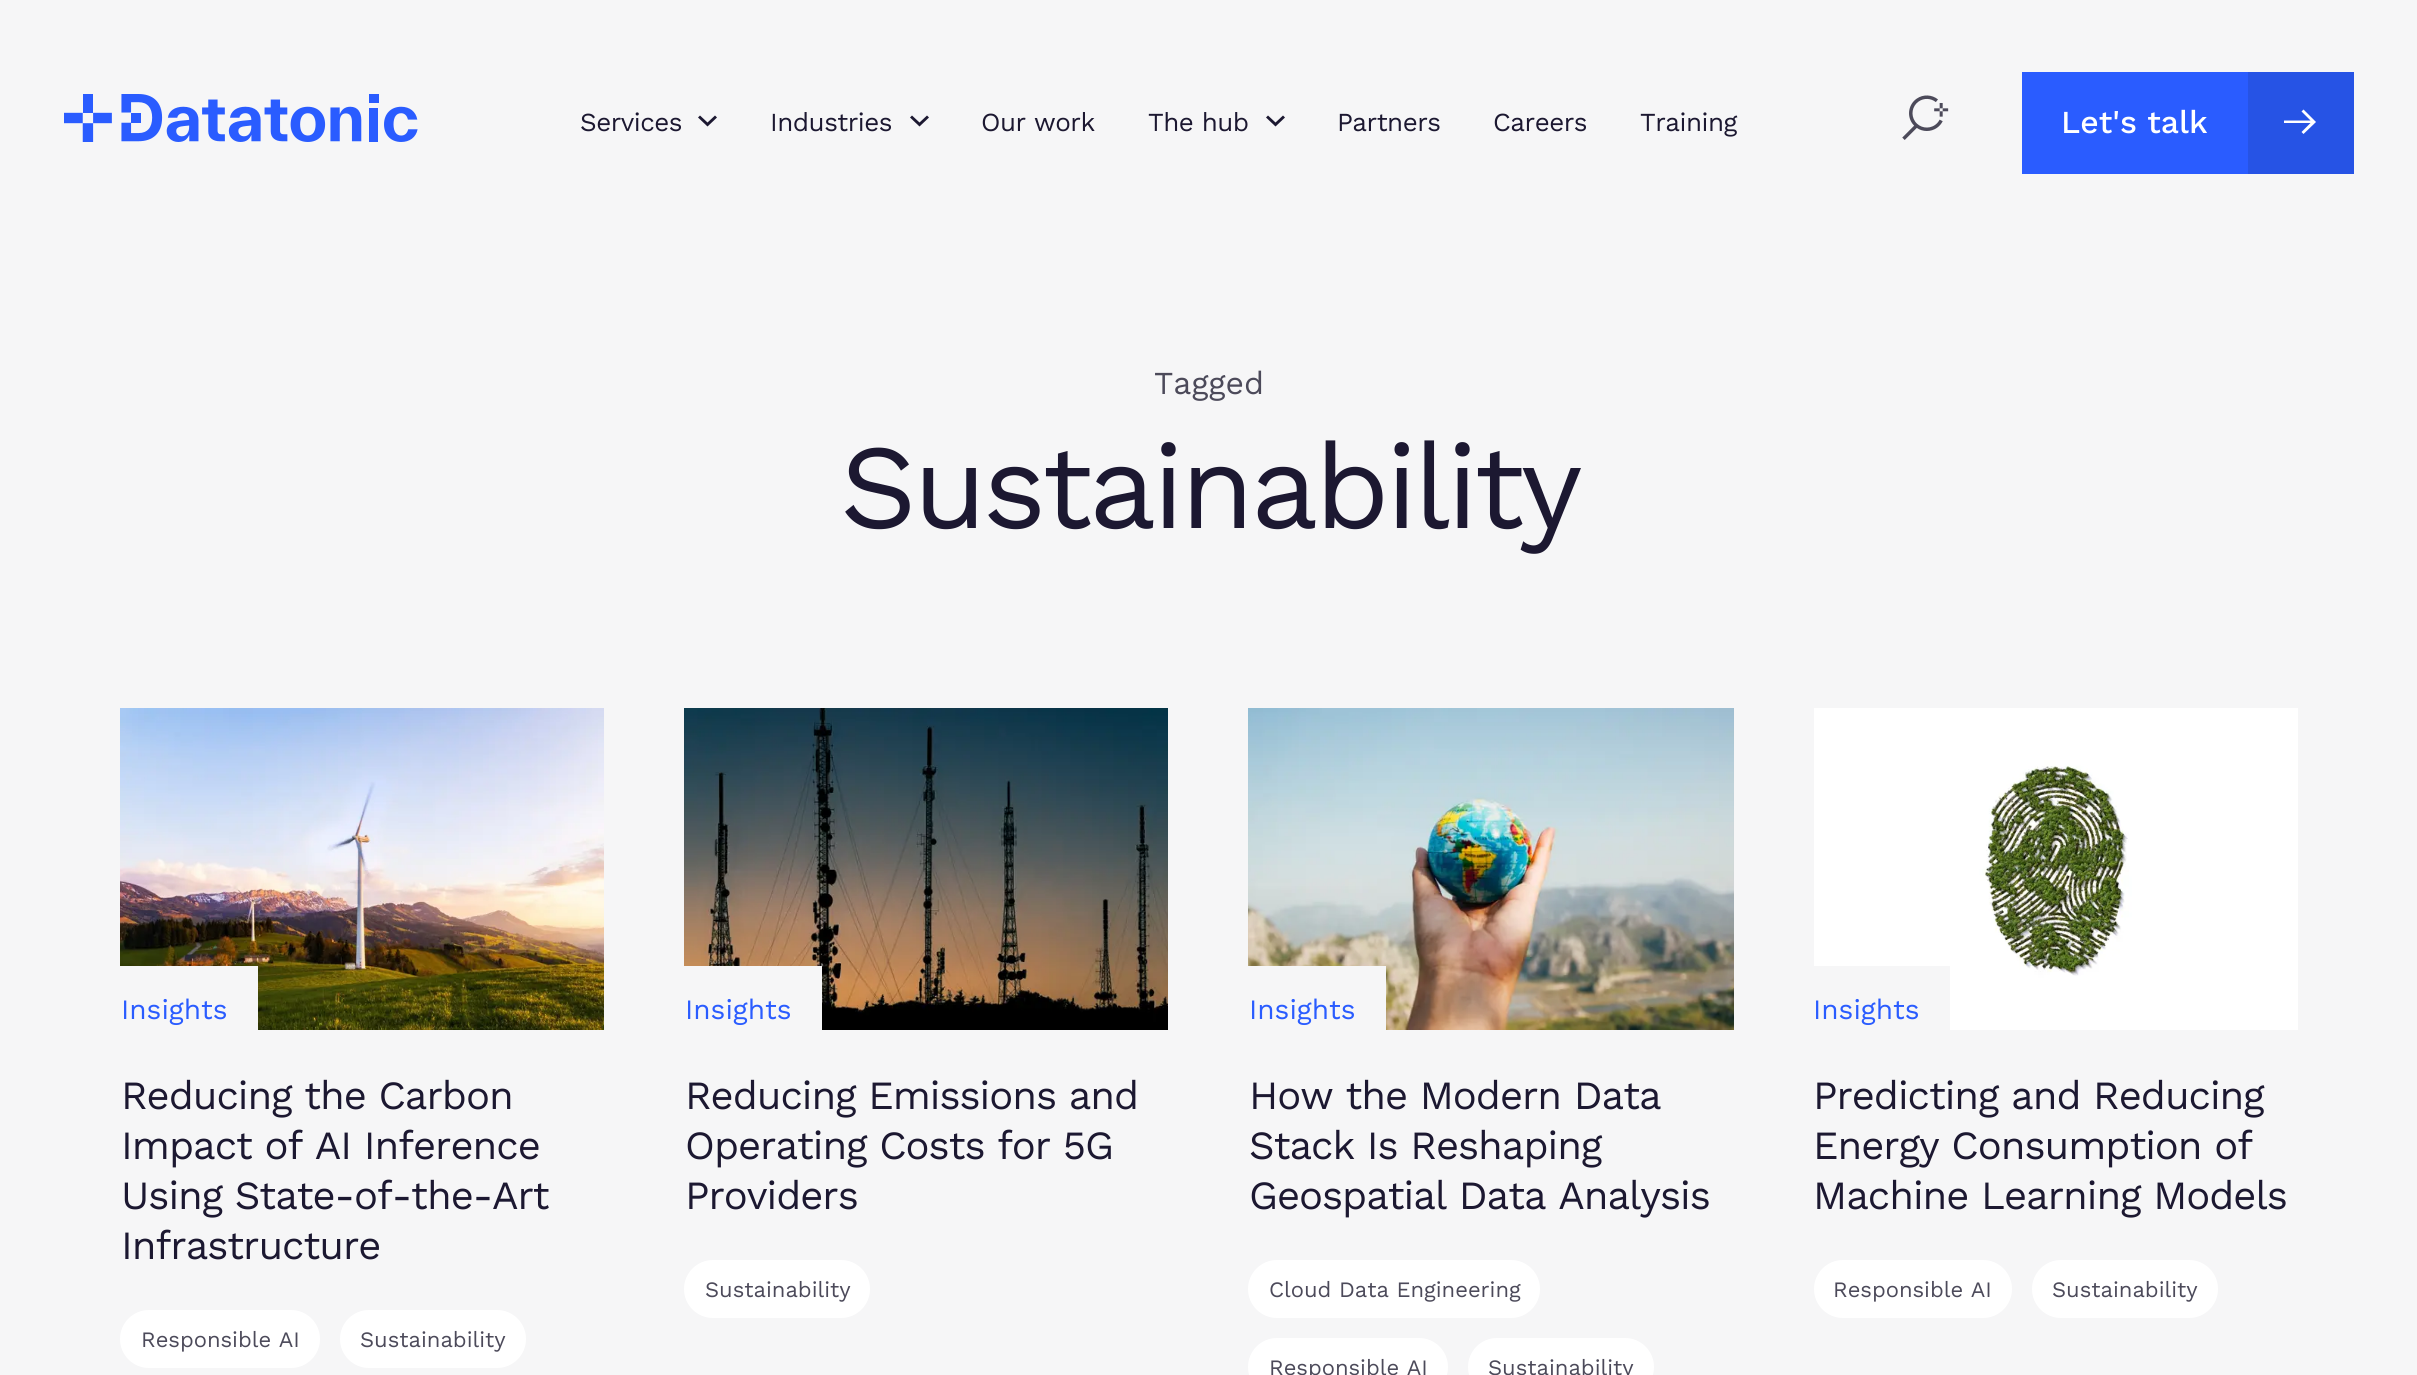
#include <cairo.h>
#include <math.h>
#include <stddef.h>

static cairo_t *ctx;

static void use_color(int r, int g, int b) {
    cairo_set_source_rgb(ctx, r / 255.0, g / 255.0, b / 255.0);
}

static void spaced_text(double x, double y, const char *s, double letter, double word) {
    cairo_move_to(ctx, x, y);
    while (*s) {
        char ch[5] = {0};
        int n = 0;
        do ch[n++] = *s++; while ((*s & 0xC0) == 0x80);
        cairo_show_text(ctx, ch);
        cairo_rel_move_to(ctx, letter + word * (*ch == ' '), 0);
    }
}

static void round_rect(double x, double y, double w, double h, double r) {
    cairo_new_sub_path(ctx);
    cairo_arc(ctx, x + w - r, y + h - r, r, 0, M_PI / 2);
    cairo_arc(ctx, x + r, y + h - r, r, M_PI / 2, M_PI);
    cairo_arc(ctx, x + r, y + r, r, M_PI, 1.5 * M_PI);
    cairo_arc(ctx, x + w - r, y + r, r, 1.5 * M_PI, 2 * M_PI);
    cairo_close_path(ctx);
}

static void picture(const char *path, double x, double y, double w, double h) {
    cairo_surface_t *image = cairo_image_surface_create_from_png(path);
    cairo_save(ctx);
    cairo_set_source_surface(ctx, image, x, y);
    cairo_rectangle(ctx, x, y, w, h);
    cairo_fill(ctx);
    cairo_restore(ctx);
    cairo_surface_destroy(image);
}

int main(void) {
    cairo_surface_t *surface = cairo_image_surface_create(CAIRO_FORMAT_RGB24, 2417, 1375);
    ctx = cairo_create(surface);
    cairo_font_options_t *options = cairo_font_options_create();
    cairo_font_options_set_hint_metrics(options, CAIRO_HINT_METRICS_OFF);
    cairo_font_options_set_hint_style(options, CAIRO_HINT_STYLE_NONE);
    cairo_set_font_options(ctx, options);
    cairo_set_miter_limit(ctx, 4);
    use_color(246, 246, 247);
    cairo_paint(ctx);
    picture("img1.png", 64, 94, 354, 48);
    cairo_select_font_face(ctx, "Work Sans", CAIRO_FONT_SLANT_NORMAL, CAIRO_FONT_WEIGHT_NORMAL);
    cairo_set_font_size(ctx, 26);
    use_color(28, 24, 49);
    spaced_text(580, 131, "Services", -0.5, 0);
    cairo_new_path(ctx);
    cairo_move_to(ctx, 707.5, 126.5);
    cairo_line_to(ctx, 717, 117.5);
    cairo_line_to(ctx, 715, 115.5);
    cairo_line_to(ctx, 707.5, 122.5);
    cairo_line_to(ctx, 700, 115.5);
    cairo_line_to(ctx, 698, 117.5);
    cairo_close_path(ctx);
    cairo_fill(ctx);
    spaced_text(770, 131, "Industries", -0.5, 0);
    cairo_new_path(ctx);
    cairo_move_to(ctx, 919.5, 126.5);
    cairo_line_to(ctx, 929, 117.5);
    cairo_line_to(ctx, 927, 115.5);
    cairo_line_to(ctx, 919.5, 122.5);
    cairo_line_to(ctx, 912, 115.5);
    cairo_line_to(ctx, 910, 117.5);
    cairo_close_path(ctx);
    cairo_fill(ctx);
    spaced_text(981, 131, "Our work", -0.5, 0);
    spaced_text(1148, 131, "The hub", -0.5, 0);
    cairo_new_path(ctx);
    cairo_move_to(ctx, 1275.5, 126.5);
    cairo_line_to(ctx, 1285, 117.5);
    cairo_line_to(ctx, 1283, 115.5);
    cairo_line_to(ctx, 1275.5, 122.5);
    cairo_line_to(ctx, 1268, 115.5);
    cairo_line_to(ctx, 1266, 117.5);
    cairo_close_path(ctx);
    cairo_fill(ctx);
    spaced_text(1337, 131, "Partners", -0.5, 0);
    spaced_text(1493, 131, "Careers", -0.5, 0);
    spaced_text(1640, 131, "Training", -0.5, 0);
    picture("img2.png", 1902, 95, 47, 45);
    use_color(42, 92, 255);
    cairo_rectangle(ctx, 2022, 72, 226, 102);
    cairo_fill(ctx);
    cairo_select_font_face(ctx, "Work Sans Medium", CAIRO_FONT_SLANT_NORMAL, CAIRO_FONT_WEIGHT_NORMAL);
    cairo_set_font_size(ctx, 32);
    use_color(255, 255, 255);
    cairo_move_to(ctx, 2061, 133);
    cairo_show_text(ctx, "Let's talk");
    use_color(38, 83, 229);
    cairo_rectangle(ctx, 2248, 72, 106, 102);
    cairo_fill(ctx);
    use_color(255, 255, 255);
    cairo_set_fill_rule(ctx, CAIRO_FILL_RULE_EVEN_ODD);
    cairo_new_path(ctx);
    cairo_move_to(ctx, 2301.5, 111.5);
    cairo_line_to(ctx, 2310.5, 120.5);
    cairo_line_to(ctx, 2284, 120.5);
    cairo_line_to(ctx, 2284, 123);
    cairo_line_to(ctx, 2310.5, 123);
    cairo_line_to(ctx, 2301.5, 132);
    cairo_line_to(ctx, 2303.5, 134);
    cairo_line_to(ctx, 2316, 122);
    cairo_line_to(ctx, 2303.5, 109.5);
    cairo_close_path(ctx);
    cairo_fill(ctx);
    cairo_select_font_face(ctx, "Work Sans", CAIRO_FONT_SLANT_NORMAL, CAIRO_FONT_WEIGHT_NORMAL);
    use_color(76, 74, 90);
    cairo_move_to(ctx, 1154, 394);
    cairo_show_text(ctx, "Tagged");
    cairo_set_font_size(ctx, 120);
    use_color(28, 24, 49);
    spaced_text(840, 528, "Sustainability", -4, 0);
    picture("img3.png", 120, 708, 484, 322);
    use_color(246, 246, 247);
    cairo_rectangle(ctx, 120, 966, 138, 64);
    cairo_fill(ctx);
    cairo_set_font_size(ctx, 28);
    use_color(42, 92, 255);
    cairo_move_to(ctx, 121, 1019);
    cairo_show_text(ctx, "Insights");
    cairo_set_font_size(ctx, 40);
    use_color(28, 24, 49);
    spaced_text(121, 1109, "Reducing the Carbon", -1, 0);
    spaced_text(121, 1159, "Impact of AI Inference", -1, 0);
    spaced_text(121, 1209, "Using State-of-the-Art", -1, 0);
    spaced_text(121, 1259, "Infrastructure", -1, 0);
    use_color(255, 255, 255);
    round_rect(120, 1310, 200, 58, 29);
    cairo_fill(ctx);
    cairo_set_font_size(ctx, 22);
    use_color(76, 74, 90);
    cairo_move_to(ctx, 141, 1347);
    cairo_show_text(ctx, "Responsible AI");
    use_color(255, 255, 255);
    round_rect(340, 1310, 186, 58, 29);
    cairo_fill(ctx);
    use_color(76, 74, 90);
    cairo_move_to(ctx, 360, 1347);
    cairo_show_text(ctx, "Sustainability");
    picture("img4.png", 684, 708, 484, 322);
    use_color(246, 246, 247);
    cairo_rectangle(ctx, 684, 966, 138, 64);
    cairo_fill(ctx);
    cairo_set_font_size(ctx, 28);
    use_color(42, 92, 255);
    cairo_move_to(ctx, 685, 1019);
    cairo_show_text(ctx, "Insights");
    cairo_set_font_size(ctx, 40);
    use_color(28, 24, 49);
    spaced_text(685, 1109, "Reducing Emissions and", -1, 0);
    spaced_text(685, 1159, "Operating Costs for 5G", -1, 0);
    spaced_text(685, 1209, "Providers", -1, 0);
    use_color(255, 255, 255);
    round_rect(684, 1260, 186, 58, 29);
    cairo_fill(ctx);
    cairo_set_font_size(ctx, 22);
    use_color(76, 74, 90);
    cairo_move_to(ctx, 705, 1297);
    cairo_show_text(ctx, "Sustainability");
    picture("img5.png", 1248, 708, 486, 322);
    use_color(246, 246, 247);
    cairo_rectangle(ctx, 1248, 966, 138, 64);
    cairo_fill(ctx);
    cairo_set_font_size(ctx, 28);
    use_color(42, 92, 255);
    cairo_move_to(ctx, 1249, 1019);
    cairo_show_text(ctx, "Insights");
    cairo_set_font_size(ctx, 40);
    use_color(28, 24, 49);
    spaced_text(1249, 1109, "How the Modern Data", -1, 0);
    spaced_text(1249, 1159, "Stack Is Reshaping", -1, 0);
    spaced_text(1249, 1209, "Geospatial Data Analysis", -1, 0);
    use_color(255, 255, 255);
    round_rect(1248, 1260, 292, 58, 29);
    cairo_fill(ctx);
    cairo_set_font_size(ctx, 22);
    use_color(76, 74, 90);
    cairo_move_to(ctx, 1269, 1297);
    cairo_show_text(ctx, "Cloud Data Engineering");
    use_color(255, 255, 255);
    round_rect(1248, 1338, 200, 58, 29);
    cairo_fill(ctx);
    use_color(76, 74, 90);
    cairo_move_to(ctx, 1269, 1375);
    cairo_show_text(ctx, "Responsible AI");
    use_color(255, 255, 255);
    round_rect(1468, 1338, 186, 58, 29);
    cairo_fill(ctx);
    use_color(76, 74, 90);
    cairo_move_to(ctx, 1488, 1375);
    cairo_show_text(ctx, "Sustainability");
    picture("img6.png", 1814, 708, 484, 322);
    use_color(246, 246, 247);
    cairo_rectangle(ctx, 1814, 966, 136, 64);
    cairo_fill(ctx);
    cairo_set_font_size(ctx, 28);
    use_color(42, 92, 255);
    cairo_move_to(ctx, 1813, 1019);
    cairo_show_text(ctx, "Insights");
    cairo_set_font_size(ctx, 40);
    use_color(28, 24, 49);
    spaced_text(1813, 1109, "Predicting and Reducing", -1, 0);
    spaced_text(1813, 1159, "Energy Consumption of", -1, 0);
    spaced_text(1813, 1209, "Machine Learning Models", -1, 0);
    use_color(255, 255, 255);
    round_rect(1814, 1260, 198, 58, 29);
    cairo_fill(ctx);
    cairo_set_font_size(ctx, 22);
    use_color(76, 74, 90);
    cairo_move_to(ctx, 1833, 1297);
    cairo_show_text(ctx, "Responsible AI");
    use_color(255, 255, 255);
    round_rect(2032, 1260, 186, 58, 29);
    cairo_fill(ctx);
    use_color(76, 74, 90);
    cairo_move_to(ctx, 2052, 1297);
    cairo_show_text(ctx, "Sustainability");
    cairo_surface_write_to_png(surface, "result.png");
    cairo_font_options_destroy(options);
    cairo_destroy(ctx);
    cairo_surface_destroy(surface);
    return 0;
}
